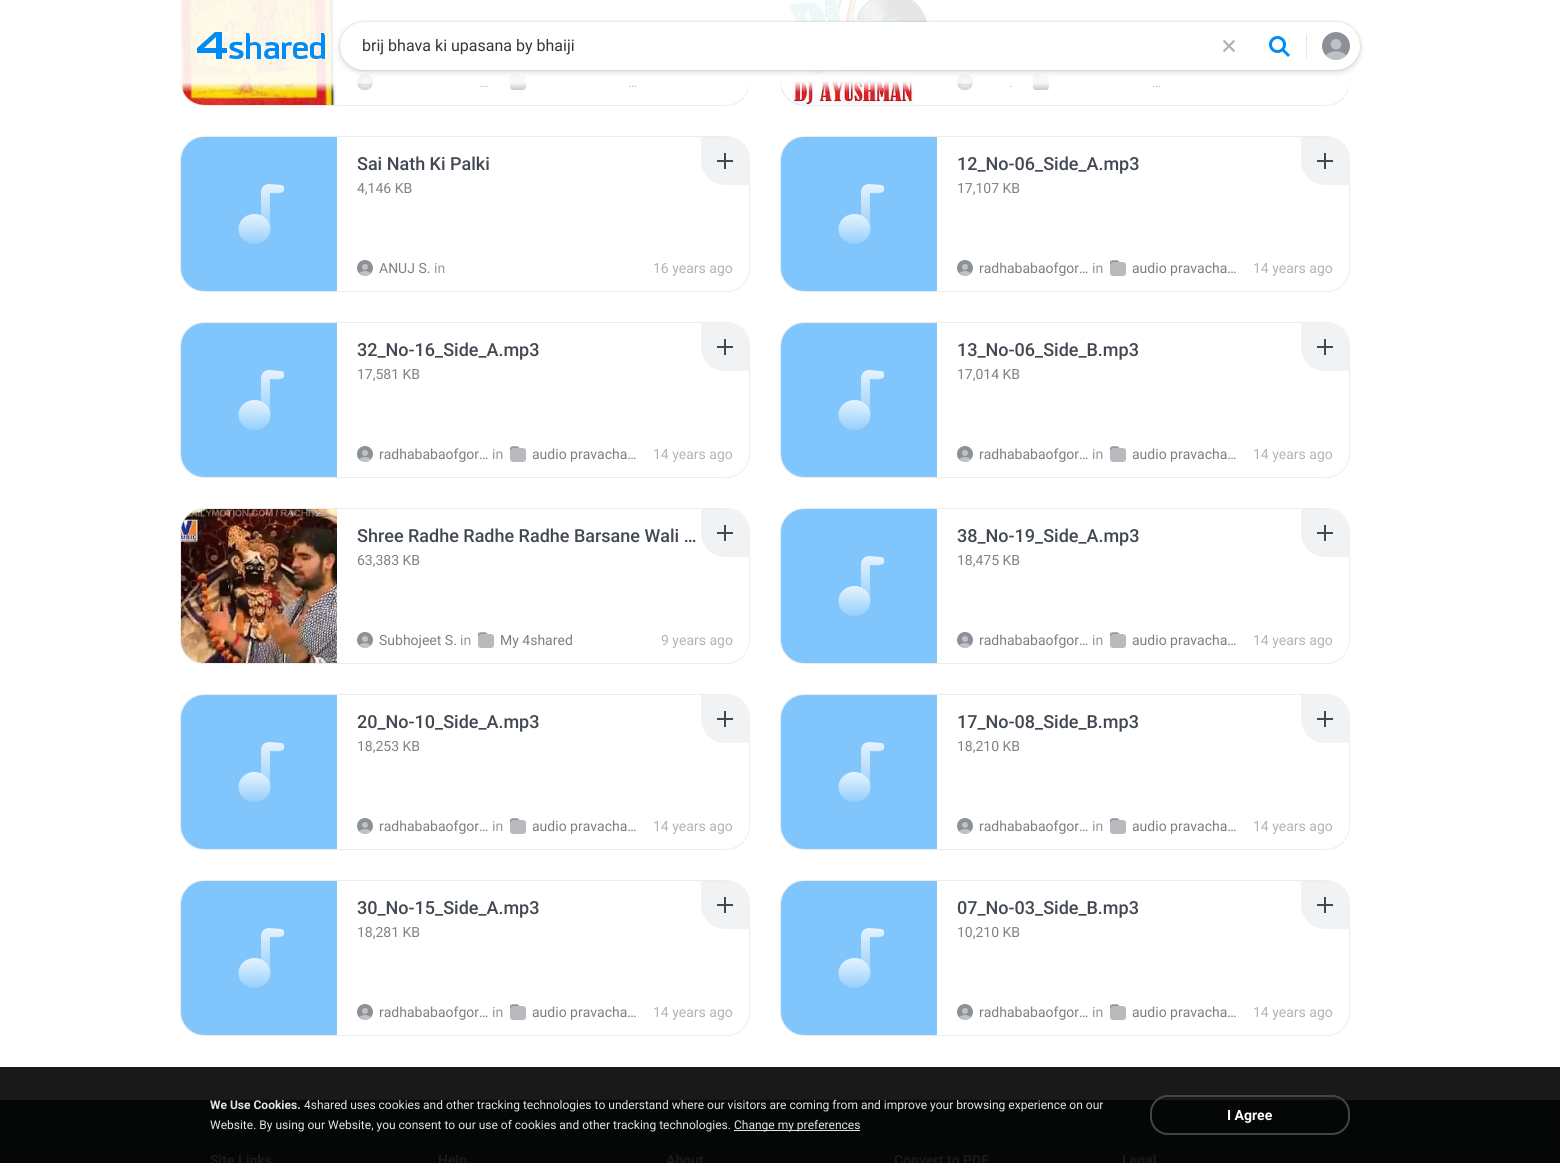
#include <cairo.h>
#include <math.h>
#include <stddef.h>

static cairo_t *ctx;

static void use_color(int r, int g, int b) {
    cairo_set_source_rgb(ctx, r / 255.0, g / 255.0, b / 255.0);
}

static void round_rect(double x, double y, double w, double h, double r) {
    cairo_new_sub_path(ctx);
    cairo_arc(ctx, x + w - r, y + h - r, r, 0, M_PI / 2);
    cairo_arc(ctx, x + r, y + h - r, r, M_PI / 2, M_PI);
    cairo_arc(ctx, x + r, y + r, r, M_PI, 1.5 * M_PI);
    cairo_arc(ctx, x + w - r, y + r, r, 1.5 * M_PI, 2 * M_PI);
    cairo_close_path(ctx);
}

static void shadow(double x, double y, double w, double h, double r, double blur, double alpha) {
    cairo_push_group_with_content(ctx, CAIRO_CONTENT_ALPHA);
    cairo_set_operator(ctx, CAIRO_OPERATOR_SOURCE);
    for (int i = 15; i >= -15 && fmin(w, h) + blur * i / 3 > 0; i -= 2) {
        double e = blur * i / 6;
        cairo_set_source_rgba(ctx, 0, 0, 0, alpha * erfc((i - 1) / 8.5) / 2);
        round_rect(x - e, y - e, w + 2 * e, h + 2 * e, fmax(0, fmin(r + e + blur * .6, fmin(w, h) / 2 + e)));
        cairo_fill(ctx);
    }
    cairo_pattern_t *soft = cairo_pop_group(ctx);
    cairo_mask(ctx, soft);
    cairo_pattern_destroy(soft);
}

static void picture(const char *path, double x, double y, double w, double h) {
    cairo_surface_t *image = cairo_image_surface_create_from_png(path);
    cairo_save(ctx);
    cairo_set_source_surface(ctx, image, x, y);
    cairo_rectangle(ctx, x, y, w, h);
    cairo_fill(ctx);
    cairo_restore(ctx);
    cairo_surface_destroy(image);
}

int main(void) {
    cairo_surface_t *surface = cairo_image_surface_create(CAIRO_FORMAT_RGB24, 1560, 1163);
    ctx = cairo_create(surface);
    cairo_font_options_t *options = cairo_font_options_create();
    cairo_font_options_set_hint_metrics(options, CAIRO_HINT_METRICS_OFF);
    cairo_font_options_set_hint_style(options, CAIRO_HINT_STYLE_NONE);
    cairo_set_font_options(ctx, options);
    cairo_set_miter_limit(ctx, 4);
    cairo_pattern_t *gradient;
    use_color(255, 255, 255);
    cairo_paint(ctx);
    use_color(25, 25, 25);
    cairo_rectangle(ctx, 0, 1067, 1560, 33);
    cairo_fill(ctx);
    round_rect(180.5, -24.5, 569, 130, 23.5);
    use_color(237, 237, 237);
    cairo_set_line_width(ctx, 1);
    cairo_stroke(ctx);
    use_color(246, 247, 247);
    cairo_new_path(ctx);
    cairo_move_to(ctx, 204, -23);
    cairo_line_to(ctx, 337, -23);
    cairo_line_to(ctx, 337, 105);
    cairo_line_to(ctx, 204, 105);
    cairo_curve_to(ctx, 191.5, 105, 181, 94.5, 181, 82);
    cairo_line_to(ctx, 181, 0);
    cairo_curve_to(ctx, 181, -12.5, 191.5, -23, 204, -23);
    cairo_close_path(ctx);
    cairo_fill(ctx);
    picture("img4.png", 181, 0, 156, 105);
    picture("img5.png", 357, 74, 16, 16);
    cairo_select_font_face(ctx, "Roboto", CAIRO_FONT_SLANT_NORMAL, CAIRO_FONT_WEIGHT_NORMAL);
    cairo_set_font_size(ctx, 14);
    use_color(122, 127, 133);
    cairo_move_to(ctx, 479, 87);
    cairo_show_text(ctx, "…");
    picture("img6.png", 510, 74, 16, 16);
    cairo_move_to(ctx, 628, 87);
    cairo_show_text(ctx, "…");
    round_rect(780.5, -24.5, 569, 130, 23.5);
    use_color(237, 237, 237);
    cairo_stroke(ctx);
    use_color(128, 197, 251);
    cairo_new_path(ctx);
    cairo_move_to(ctx, 804, -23);
    cairo_line_to(ctx, 937, -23);
    cairo_line_to(ctx, 937, 105);
    cairo_line_to(ctx, 804, 105);
    cairo_curve_to(ctx, 791.5, 105, 781, 94.5, 781, 82);
    cairo_line_to(ctx, 781, 0);
    cairo_curve_to(ctx, 781, -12.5, 791.5, -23, 804, -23);
    cairo_close_path(ctx);
    cairo_fill(ctx);
    picture("img7.png", 781, 0, 156, 105);
    picture("img5.png", 957, 74, 16, 16);
    use_color(122, 127, 133);
    cairo_move_to(ctx, 1009, 87);
    cairo_show_text(ctx, ".");
    picture("img6.png", 1033, 74, 16, 16);
    cairo_move_to(ctx, 1152, 87);
    cairo_show_text(ctx, "…");
    gradient = cairo_pattern_create_linear(780, 0, 780, 92);
    cairo_pattern_add_color_stop_rgba(gradient, 0, 1, 1, 1, 0.9);
    cairo_pattern_add_color_stop_rgba(gradient, 0.9, 1, 1, 1, 0.9);
    cairo_pattern_add_color_stop_rgba(gradient, 1, 1, 1, 1, 0);
    cairo_set_source(ctx, gradient);
    cairo_pattern_destroy(gradient);
    cairo_rectangle(ctx, 180, 0, 1170, 92);
    cairo_fill(ctx);
    use_color(0, 0, 0);
    shadow(340, 22, 1020, 48, 24, 1, 0.15);
    shadow(340, 24, 1020, 48, 24, 3, 0.15);
    use_color(255, 255, 255);
    round_rect(340, 22, 1020, 48, 24);
    cairo_fill(ctx);
    picture("img1.png", 197, 32, 128, 27);
    cairo_set_font_size(ctx, 16);
    use_color(49, 56, 62);
    cairo_move_to(ctx, 362, 51);
    cairo_show_text(ctx, "brij bhava ki upasana by bhaiji");
    picture("img2.png", 1223, 40, 12, 12);
    cairo_arc(ctx, 1277.5, 44.5, 7, 0, 2 * M_PI);
    use_color(0, 139, 246);
    cairo_set_line_width(ctx, 3);
    cairo_stroke(ctx);
    cairo_set_fill_rule(ctx, CAIRO_FILL_RULE_EVEN_ODD);
    cairo_new_path(ctx);
    cairo_move_to(ctx, 1288, 57);
    cairo_line_to(ctx, 1282, 51);
    cairo_line_to(ctx, 1284, 49);
    cairo_line_to(ctx, 1290, 55);
    cairo_close_path(ctx);
    cairo_fill(ctx);
    use_color(230, 230, 230);
    cairo_rectangle(ctx, 1306, 34, 1, 24);
    cairo_fill(ctx);
    picture("img3.png", 1322, 32, 28, 28);
    round_rect(180.5, 136.5, 569, 155, 23.5);
    use_color(237, 237, 237);
    cairo_set_line_width(ctx, 1);
    cairo_stroke(ctx);
    use_color(128, 197, 251);
    cairo_new_path(ctx);
    cairo_move_to(ctx, 204, 137);
    cairo_line_to(ctx, 337, 137);
    cairo_line_to(ctx, 337, 291);
    cairo_line_to(ctx, 204, 291);
    cairo_curve_to(ctx, 191.5, 291, 181, 280.5, 181, 268);
    cairo_line_to(ctx, 181, 160);
    cairo_curve_to(ctx, 181, 147.5, 191.5, 137, 204, 137);
    cairo_close_path(ctx);
    cairo_fill(ctx);
    gradient = cairo_pattern_create_linear(263, 184, 263, 242);
    cairo_pattern_add_color_stop_rgba(gradient, 0, 0.902, 0.953, 0.996, 1);
    cairo_pattern_add_color_stop_rgba(gradient, 1, 0.502, 0.773, 0.984, 1);
    cairo_set_source(ctx, gradient);
    cairo_pattern_destroy(gradient);
    cairo_set_fill_rule(ctx, CAIRO_FILL_RULE_WINDING);
    cairo_new_path(ctx);
    cairo_move_to(ctx, 269, 184);
    cairo_line_to(ctx, 281, 185);
    cairo_curve_to(ctx, 283, 185, 284, 186, 284, 188);
    cairo_curve_to(ctx, 286, 195, 274, 193, 270, 193);
    cairo_line_to(ctx, 270, 228);
    cairo_line_to(ctx, 261, 228);
    cairo_line_to(ctx, 261, 192);
    cairo_curve_to(ctx, 261, 187, 265, 184, 269, 184);
    cairo_close_path(ctx);
    cairo_fill(ctx);
    cairo_set_source_rgba(ctx, 0.502, 0.773, 0.984, 0.8);
    cairo_new_path(ctx);
    cairo_move_to(ctx, 254.5, 214);
    cairo_curve_to(ctx, 263.5, 214, 270.5, 220.5, 270.5, 229);
    cairo_curve_to(ctx, 270.5, 237.5, 263.5, 244, 254.5, 244);
    cairo_curve_to(ctx, 245.5, 244, 238.5, 237.5, 238.5, 229);
    cairo_curve_to(ctx, 238.5, 220.5, 245.5, 214, 254.5, 214);
    cairo_close_path(ctx);
    cairo_fill(ctx);
    gradient = cairo_pattern_create_linear(241, 214, 241, 252);
    cairo_pattern_add_color_stop_rgba(gradient, 0, 1, 1, 1, 0.8);
    cairo_pattern_add_color_stop_rgba(gradient, 1, 1, 1, 1, 0);
    cairo_set_source(ctx, gradient);
    cairo_pattern_destroy(gradient);
    cairo_new_path(ctx);
    cairo_move_to(ctx, 254.5, 214);
    cairo_curve_to(ctx, 263.5, 214, 270.5, 220.5, 270.5, 229);
    cairo_curve_to(ctx, 270.5, 237.5, 263.5, 244, 254.5, 244);
    cairo_curve_to(ctx, 245.5, 244, 238.5, 237.5, 238.5, 229);
    cairo_curve_to(ctx, 238.5, 220.5, 245.5, 214, 254.5, 214);
    cairo_close_path(ctx);
    cairo_fill(ctx);
    cairo_save(ctx);
    round_rect(181, 137, 568, 154, 23);
    cairo_clip(ctx);
    use_color(241, 242, 243);
    cairo_new_path(ctx);
    cairo_move_to(ctx, 701, 137);
    cairo_line_to(ctx, 725, 137);
    cairo_curve_to(ctx, 738.5, 137, 749, 147.5, 749, 161);
    cairo_line_to(ctx, 749, 185);
    cairo_line_to(ctx, 725, 185);
    cairo_curve_to(ctx, 711.5, 185, 701, 174.5, 701, 161);
    cairo_close_path(ctx);
    cairo_fill(ctx);
    cairo_restore(ctx);
    use_color(65, 72, 81);
    cairo_rectangle(ctx, 717, 160, 16, 2);
    cairo_fill(ctx);
    cairo_rectangle(ctx, 724, 153, 2, 16);
    cairo_fill(ctx);
    cairo_select_font_face(ctx, "Roboto Medium", CAIRO_FONT_SLANT_NORMAL, CAIRO_FONT_WEIGHT_NORMAL);
    cairo_set_font_size(ctx, 18);
    cairo_move_to(ctx, 357, 170);
    cairo_show_text(ctx, "Sai Nath Ki Palki");
    cairo_select_font_face(ctx, "Roboto", CAIRO_FONT_SLANT_NORMAL, CAIRO_FONT_WEIGHT_NORMAL);
    cairo_set_font_size(ctx, 14);
    use_color(130, 130, 130);
    cairo_move_to(ctx, 357, 193);
    cairo_show_text(ctx, "4,146 KB");
    picture("img5.png", 357, 260, 16, 16);
    use_color(122, 127, 133);
    cairo_move_to(ctx, 379, 273);
    cairo_show_text(ctx, "ANUJ S.");
    use_color(153, 153, 153);
    cairo_move_to(ctx, 434, 273);
    cairo_show_text(ctx, "in");
    use_color(179, 179, 179);
    cairo_move_to(ctx, 653, 273);
    cairo_show_text(ctx, "16 years ago");
    round_rect(780.5, 136.5, 569, 155, 23.5);
    use_color(237, 237, 237);
    cairo_stroke(ctx);
    use_color(128, 197, 251);
    cairo_new_path(ctx);
    cairo_move_to(ctx, 804, 137);
    cairo_line_to(ctx, 937, 137);
    cairo_line_to(ctx, 937, 291);
    cairo_line_to(ctx, 804, 291);
    cairo_curve_to(ctx, 791.5, 291, 781, 280.5, 781, 268);
    cairo_line_to(ctx, 781, 160);
    cairo_curve_to(ctx, 781, 147.5, 791.5, 137, 804, 137);
    cairo_close_path(ctx);
    cairo_fill(ctx);
    gradient = cairo_pattern_create_linear(863, 184, 863, 242);
    cairo_pattern_add_color_stop_rgba(gradient, 0, 0.902, 0.953, 0.996, 1);
    cairo_pattern_add_color_stop_rgba(gradient, 1, 0.502, 0.773, 0.984, 1);
    cairo_set_source(ctx, gradient);
    cairo_pattern_destroy(gradient);
    cairo_new_path(ctx);
    cairo_move_to(ctx, 869, 184);
    cairo_line_to(ctx, 881, 185);
    cairo_curve_to(ctx, 883, 185, 884, 186, 884, 188);
    cairo_curve_to(ctx, 886, 195, 874, 193, 870, 193);
    cairo_line_to(ctx, 870, 228);
    cairo_line_to(ctx, 861, 228);
    cairo_line_to(ctx, 861, 192);
    cairo_curve_to(ctx, 861, 187, 865, 184, 869, 184);
    cairo_close_path(ctx);
    cairo_fill(ctx);
    cairo_set_source_rgba(ctx, 0.502, 0.773, 0.984, 0.8);
    cairo_new_path(ctx);
    cairo_move_to(ctx, 854.5, 214);
    cairo_curve_to(ctx, 863.5, 214, 870.5, 220.5, 870.5, 229);
    cairo_curve_to(ctx, 870.5, 237.5, 863.5, 244, 854.5, 244);
    cairo_curve_to(ctx, 845.5, 244, 838.5, 237.5, 838.5, 229);
    cairo_curve_to(ctx, 838.5, 220.5, 845.5, 214, 854.5, 214);
    cairo_close_path(ctx);
    cairo_fill(ctx);
    gradient = cairo_pattern_create_linear(841, 214, 841, 252);
    cairo_pattern_add_color_stop_rgba(gradient, 0, 1, 1, 1, 0.8);
    cairo_pattern_add_color_stop_rgba(gradient, 1, 1, 1, 1, 0);
    cairo_set_source(ctx, gradient);
    cairo_pattern_destroy(gradient);
    cairo_new_path(ctx);
    cairo_move_to(ctx, 854.5, 214);
    cairo_curve_to(ctx, 863.5, 214, 870.5, 220.5, 870.5, 229);
    cairo_curve_to(ctx, 870.5, 237.5, 863.5, 244, 854.5, 244);
    cairo_curve_to(ctx, 845.5, 244, 838.5, 237.5, 838.5, 229);
    cairo_curve_to(ctx, 838.5, 220.5, 845.5, 214, 854.5, 214);
    cairo_close_path(ctx);
    cairo_fill(ctx);
    cairo_save(ctx);
    round_rect(781, 137, 568, 154, 23);
    cairo_clip(ctx);
    use_color(241, 242, 243);
    cairo_new_path(ctx);
    cairo_move_to(ctx, 1301, 137);
    cairo_line_to(ctx, 1325, 137);
    cairo_curve_to(ctx, 1338.5, 137, 1349, 147.5, 1349, 161);
    cairo_line_to(ctx, 1349, 185);
    cairo_line_to(ctx, 1325, 185);
    cairo_curve_to(ctx, 1311.5, 185, 1301, 174.5, 1301, 161);
    cairo_close_path(ctx);
    cairo_fill(ctx);
    cairo_restore(ctx);
    use_color(65, 72, 81);
    cairo_rectangle(ctx, 1317, 160, 16, 2);
    cairo_fill(ctx);
    cairo_rectangle(ctx, 1324, 153, 2, 16);
    cairo_fill(ctx);
    cairo_select_font_face(ctx, "Roboto Medium", CAIRO_FONT_SLANT_NORMAL, CAIRO_FONT_WEIGHT_NORMAL);
    cairo_set_font_size(ctx, 18);
    cairo_move_to(ctx, 957, 170);
    cairo_show_text(ctx, "12_No-06_Side_A.mp3");
    cairo_select_font_face(ctx, "Roboto", CAIRO_FONT_SLANT_NORMAL, CAIRO_FONT_WEIGHT_NORMAL);
    cairo_set_font_size(ctx, 14);
    use_color(130, 130, 130);
    cairo_move_to(ctx, 957, 193);
    cairo_show_text(ctx, "17,107 KB");
    picture("img5.png", 957, 260, 16, 16);
    use_color(122, 127, 133);
    cairo_move_to(ctx, 979, 273);
    cairo_show_text(ctx, "radhababaofgor…");
    use_color(153, 153, 153);
    cairo_move_to(ctx, 1092, 273);
    cairo_show_text(ctx, "in");
    picture("img6.png", 1110, 260, 16, 16);
    use_color(122, 127, 133);
    cairo_move_to(ctx, 1132, 273);
    cairo_show_text(ctx, "audio pravacha…");
    use_color(179, 179, 179);
    cairo_move_to(ctx, 1253, 273);
    cairo_show_text(ctx, "14 years ago");
    round_rect(180.5, 322.5, 569, 155, 23.5);
    use_color(237, 237, 237);
    cairo_stroke(ctx);
    use_color(128, 197, 251);
    cairo_new_path(ctx);
    cairo_move_to(ctx, 204, 323);
    cairo_line_to(ctx, 337, 323);
    cairo_line_to(ctx, 337, 477);
    cairo_line_to(ctx, 204, 477);
    cairo_curve_to(ctx, 191.5, 477, 181, 466.5, 181, 454);
    cairo_line_to(ctx, 181, 346);
    cairo_curve_to(ctx, 181, 333.5, 191.5, 323, 204, 323);
    cairo_close_path(ctx);
    cairo_fill(ctx);
    gradient = cairo_pattern_create_linear(263, 370, 263, 428);
    cairo_pattern_add_color_stop_rgba(gradient, 0, 0.902, 0.953, 0.996, 1);
    cairo_pattern_add_color_stop_rgba(gradient, 1, 0.502, 0.773, 0.984, 1);
    cairo_set_source(ctx, gradient);
    cairo_pattern_destroy(gradient);
    cairo_new_path(ctx);
    cairo_move_to(ctx, 269, 370);
    cairo_line_to(ctx, 281, 371);
    cairo_curve_to(ctx, 283, 371, 284, 372, 284, 374);
    cairo_curve_to(ctx, 286, 381, 274, 379, 270, 379);
    cairo_line_to(ctx, 270, 414);
    cairo_line_to(ctx, 261, 414);
    cairo_line_to(ctx, 261, 378);
    cairo_curve_to(ctx, 261, 373, 265, 370, 269, 370);
    cairo_close_path(ctx);
    cairo_fill(ctx);
    cairo_set_source_rgba(ctx, 0.502, 0.773, 0.984, 0.8);
    cairo_new_path(ctx);
    cairo_move_to(ctx, 254.5, 400);
    cairo_curve_to(ctx, 263.5, 400, 270.5, 406.5, 270.5, 415);
    cairo_curve_to(ctx, 270.5, 423.5, 263.5, 430, 254.5, 430);
    cairo_curve_to(ctx, 245.5, 430, 238.5, 423.5, 238.5, 415);
    cairo_curve_to(ctx, 238.5, 406.5, 245.5, 400, 254.5, 400);
    cairo_close_path(ctx);
    cairo_fill(ctx);
    gradient = cairo_pattern_create_linear(241, 400, 241, 438);
    cairo_pattern_add_color_stop_rgba(gradient, 0, 1, 1, 1, 0.8);
    cairo_pattern_add_color_stop_rgba(gradient, 1, 1, 1, 1, 0);
    cairo_set_source(ctx, gradient);
    cairo_pattern_destroy(gradient);
    cairo_new_path(ctx);
    cairo_move_to(ctx, 254.5, 400);
    cairo_curve_to(ctx, 263.5, 400, 270.5, 406.5, 270.5, 415);
    cairo_curve_to(ctx, 270.5, 423.5, 263.5, 430, 254.5, 430);
    cairo_curve_to(ctx, 245.5, 430, 238.5, 423.5, 238.5, 415);
    cairo_curve_to(ctx, 238.5, 406.5, 245.5, 400, 254.5, 400);
    cairo_close_path(ctx);
    cairo_fill(ctx);
    cairo_save(ctx);
    round_rect(181, 323, 568, 154, 23);
    cairo_clip(ctx);
    use_color(241, 242, 243);
    cairo_new_path(ctx);
    cairo_move_to(ctx, 701, 323);
    cairo_line_to(ctx, 725, 323);
    cairo_curve_to(ctx, 738.5, 323, 749, 333.5, 749, 347);
    cairo_line_to(ctx, 749, 371);
    cairo_line_to(ctx, 725, 371);
    cairo_curve_to(ctx, 711.5, 371, 701, 360.5, 701, 347);
    cairo_close_path(ctx);
    cairo_fill(ctx);
    cairo_restore(ctx);
    use_color(65, 72, 81);
    cairo_rectangle(ctx, 717, 346, 16, 2);
    cairo_fill(ctx);
    cairo_rectangle(ctx, 724, 339, 2, 16);
    cairo_fill(ctx);
    cairo_select_font_face(ctx, "Roboto Medium", CAIRO_FONT_SLANT_NORMAL, CAIRO_FONT_WEIGHT_NORMAL);
    cairo_set_font_size(ctx, 18);
    cairo_move_to(ctx, 357, 356);
    cairo_show_text(ctx, "32_No-16_Side_A.mp3");
    cairo_select_font_face(ctx, "Roboto", CAIRO_FONT_SLANT_NORMAL, CAIRO_FONT_WEIGHT_NORMAL);
    cairo_set_font_size(ctx, 14);
    use_color(130, 130, 130);
    cairo_move_to(ctx, 357, 379);
    cairo_show_text(ctx, "17,581 KB");
    picture("img5.png", 357, 446, 16, 16);
    use_color(122, 127, 133);
    cairo_move_to(ctx, 379, 459);
    cairo_show_text(ctx, "radhababaofgor…");
    use_color(153, 153, 153);
    cairo_move_to(ctx, 492, 459);
    cairo_show_text(ctx, "in");
    picture("img6.png", 510, 446, 16, 16);
    use_color(122, 127, 133);
    cairo_move_to(ctx, 532, 459);
    cairo_show_text(ctx, "audio pravacha…");
    use_color(179, 179, 179);
    cairo_move_to(ctx, 653, 459);
    cairo_show_text(ctx, "14 years ago");
    round_rect(780.5, 322.5, 569, 155, 23.5);
    use_color(237, 237, 237);
    cairo_stroke(ctx);
    use_color(128, 197, 251);
    cairo_new_path(ctx);
    cairo_move_to(ctx, 804, 323);
    cairo_line_to(ctx, 937, 323);
    cairo_line_to(ctx, 937, 477);
    cairo_line_to(ctx, 804, 477);
    cairo_curve_to(ctx, 791.5, 477, 781, 466.5, 781, 454);
    cairo_line_to(ctx, 781, 346);
    cairo_curve_to(ctx, 781, 333.5, 791.5, 323, 804, 323);
    cairo_close_path(ctx);
    cairo_fill(ctx);
    gradient = cairo_pattern_create_linear(863, 370, 863, 428);
    cairo_pattern_add_color_stop_rgba(gradient, 0, 0.902, 0.953, 0.996, 1);
    cairo_pattern_add_color_stop_rgba(gradient, 1, 0.502, 0.773, 0.984, 1);
    cairo_set_source(ctx, gradient);
    cairo_pattern_destroy(gradient);
    cairo_new_path(ctx);
    cairo_move_to(ctx, 869, 370);
    cairo_line_to(ctx, 881, 371);
    cairo_curve_to(ctx, 883, 371, 884, 372, 884, 374);
    cairo_curve_to(ctx, 886, 381, 874, 379, 870, 379);
    cairo_line_to(ctx, 870, 414);
    cairo_line_to(ctx, 861, 414);
    cairo_line_to(ctx, 861, 378);
    cairo_curve_to(ctx, 861, 373, 865, 370, 869, 370);
    cairo_close_path(ctx);
    cairo_fill(ctx);
    cairo_set_source_rgba(ctx, 0.502, 0.773, 0.984, 0.8);
    cairo_new_path(ctx);
    cairo_move_to(ctx, 854.5, 400);
    cairo_curve_to(ctx, 863.5, 400, 870.5, 406.5, 870.5, 415);
    cairo_curve_to(ctx, 870.5, 423.5, 863.5, 430, 854.5, 430);
    cairo_curve_to(ctx, 845.5, 430, 838.5, 423.5, 838.5, 415);
    cairo_curve_to(ctx, 838.5, 406.5, 845.5, 400, 854.5, 400);
    cairo_close_path(ctx);
    cairo_fill(ctx);
    gradient = cairo_pattern_create_linear(841, 400, 841, 438);
    cairo_pattern_add_color_stop_rgba(gradient, 0, 1, 1, 1, 0.8);
    cairo_pattern_add_color_stop_rgba(gradient, 1, 1, 1, 1, 0);
    cairo_set_source(ctx, gradient);
    cairo_pattern_destroy(gradient);
    cairo_new_path(ctx);
    cairo_move_to(ctx, 854.5, 400);
    cairo_curve_to(ctx, 863.5, 400, 870.5, 406.5, 870.5, 415);
    cairo_curve_to(ctx, 870.5, 423.5, 863.5, 430, 854.5, 430);
    cairo_curve_to(ctx, 845.5, 430, 838.5, 423.5, 838.5, 415);
    cairo_curve_to(ctx, 838.5, 406.5, 845.5, 400, 854.5, 400);
    cairo_close_path(ctx);
    cairo_fill(ctx);
    cairo_save(ctx);
    round_rect(781, 323, 568, 154, 23);
    cairo_clip(ctx);
    use_color(241, 242, 243);
    cairo_new_path(ctx);
    cairo_move_to(ctx, 1301, 323);
    cairo_line_to(ctx, 1325, 323);
    cairo_curve_to(ctx, 1338.5, 323, 1349, 333.5, 1349, 347);
    cairo_line_to(ctx, 1349, 371);
    cairo_line_to(ctx, 1325, 371);
    cairo_curve_to(ctx, 1311.5, 371, 1301, 360.5, 1301, 347);
    cairo_close_path(ctx);
    cairo_fill(ctx);
    cairo_restore(ctx);
    use_color(65, 72, 81);
    cairo_rectangle(ctx, 1317, 346, 16, 2);
    cairo_fill(ctx);
    cairo_rectangle(ctx, 1324, 339, 2, 16);
    cairo_fill(ctx);
    cairo_select_font_face(ctx, "Roboto Medium", CAIRO_FONT_SLANT_NORMAL, CAIRO_FONT_WEIGHT_NORMAL);
    cairo_set_font_size(ctx, 18);
    cairo_move_to(ctx, 957, 356);
    cairo_show_text(ctx, "13_No-06_Side_B.mp3");
    cairo_select_font_face(ctx, "Roboto", CAIRO_FONT_SLANT_NORMAL, CAIRO_FONT_WEIGHT_NORMAL);
    cairo_set_font_size(ctx, 14);
    use_color(130, 130, 130);
    cairo_move_to(ctx, 957, 379);
    cairo_show_text(ctx, "17,014 KB");
    picture("img5.png", 957, 446, 16, 16);
    use_color(122, 127, 133);
    cairo_move_to(ctx, 979, 459);
    cairo_show_text(ctx, "radhababaofgor…");
    use_color(153, 153, 153);
    cairo_move_to(ctx, 1092, 459);
    cairo_show_text(ctx, "in");
    picture("img6.png", 1110, 446, 16, 16);
    use_color(122, 127, 133);
    cairo_move_to(ctx, 1132, 459);
    cairo_show_text(ctx, "audio pravacha…");
    use_color(179, 179, 179);
    cairo_move_to(ctx, 1253, 459);
    cairo_show_text(ctx, "14 years ago");
    round_rect(180.5, 508.5, 569, 155, 23.5);
    use_color(237, 237, 237);
    cairo_stroke(ctx);
    use_color(128, 197, 251);
    cairo_new_path(ctx);
    cairo_move_to(ctx, 204, 509);
    cairo_line_to(ctx, 337, 509);
    cairo_line_to(ctx, 337, 663);
    cairo_line_to(ctx, 204, 663);
    cairo_curve_to(ctx, 191.5, 663, 181, 652.5, 181, 640);
    cairo_line_to(ctx, 181, 532);
    cairo_curve_to(ctx, 181, 519.5, 191.5, 509, 204, 509);
    cairo_close_path(ctx);
    cairo_fill(ctx);
    picture("img8.png", 181, 509, 156, 154);
    cairo_save(ctx);
    round_rect(181, 509, 568, 154, 23);
    cairo_clip(ctx);
    use_color(241, 242, 243);
    cairo_new_path(ctx);
    cairo_move_to(ctx, 701, 509);
    cairo_line_to(ctx, 725, 509);
    cairo_curve_to(ctx, 738.5, 509, 749, 519.5, 749, 533);
    cairo_line_to(ctx, 749, 557);
    cairo_line_to(ctx, 725, 557);
    cairo_curve_to(ctx, 711.5, 557, 701, 546.5, 701, 533);
    cairo_close_path(ctx);
    cairo_fill(ctx);
    cairo_restore(ctx);
    use_color(65, 72, 81);
    cairo_rectangle(ctx, 717, 532, 16, 2);
    cairo_fill(ctx);
    cairo_rectangle(ctx, 724, 525, 2, 16);
    cairo_fill(ctx);
    cairo_select_font_face(ctx, "Roboto Medium", CAIRO_FONT_SLANT_NORMAL, CAIRO_FONT_WEIGHT_NORMAL);
    cairo_set_font_size(ctx, 18);
    cairo_move_to(ctx, 357, 542);
    cairo_show_text(ctx, "Shree Radhe Radhe Radhe Barsane Wali …");
    cairo_select_font_face(ctx, "Roboto", CAIRO_FONT_SLANT_NORMAL, CAIRO_FONT_WEIGHT_NORMAL);
    cairo_set_font_size(ctx, 14);
    use_color(130, 130, 130);
    cairo_move_to(ctx, 357, 565);
    cairo_show_text(ctx, "63,383 KB");
    picture("img5.png", 357, 632, 16, 16);
    use_color(122, 127, 133);
    cairo_move_to(ctx, 379, 645);
    cairo_show_text(ctx, "Subhojeet S.");
    use_color(153, 153, 153);
    cairo_move_to(ctx, 460, 645);
    cairo_show_text(ctx, "in");
    picture("img6.png", 478, 632, 16, 16);
    use_color(122, 127, 133);
    cairo_move_to(ctx, 500, 645);
    cairo_show_text(ctx, "My 4shared");
    use_color(179, 179, 179);
    cairo_move_to(ctx, 661, 645);
    cairo_show_text(ctx, "9 years ago");
    round_rect(780.5, 508.5, 569, 155, 23.5);
    use_color(237, 237, 237);
    cairo_stroke(ctx);
    use_color(128, 197, 251);
    cairo_new_path(ctx);
    cairo_move_to(ctx, 804, 509);
    cairo_line_to(ctx, 937, 509);
    cairo_line_to(ctx, 937, 663);
    cairo_line_to(ctx, 804, 663);
    cairo_curve_to(ctx, 791.5, 663, 781, 652.5, 781, 640);
    cairo_line_to(ctx, 781, 532);
    cairo_curve_to(ctx, 781, 519.5, 791.5, 509, 804, 509);
    cairo_close_path(ctx);
    cairo_fill(ctx);
    gradient = cairo_pattern_create_linear(863, 556, 863, 614);
    cairo_pattern_add_color_stop_rgba(gradient, 0, 0.902, 0.953, 0.996, 1);
    cairo_pattern_add_color_stop_rgba(gradient, 1, 0.502, 0.773, 0.984, 1);
    cairo_set_source(ctx, gradient);
    cairo_pattern_destroy(gradient);
    cairo_new_path(ctx);
    cairo_move_to(ctx, 869, 556);
    cairo_line_to(ctx, 881, 557);
    cairo_curve_to(ctx, 883, 557, 884, 558, 884, 560);
    cairo_curve_to(ctx, 886, 567, 874, 565, 870, 565);
    cairo_line_to(ctx, 870, 600);
    cairo_line_to(ctx, 861, 600);
    cairo_line_to(ctx, 861, 564);
    cairo_curve_to(ctx, 861, 559, 865, 556, 869, 556);
    cairo_close_path(ctx);
    cairo_fill(ctx);
    cairo_set_source_rgba(ctx, 0.502, 0.773, 0.984, 0.8);
    cairo_new_path(ctx);
    cairo_move_to(ctx, 854.5, 586);
    cairo_curve_to(ctx, 863.5, 586, 870.5, 592.5, 870.5, 601);
    cairo_curve_to(ctx, 870.5, 609.5, 863.5, 616, 854.5, 616);
    cairo_curve_to(ctx, 845.5, 616, 838.5, 609.5, 838.5, 601);
    cairo_curve_to(ctx, 838.5, 592.5, 845.5, 586, 854.5, 586);
    cairo_close_path(ctx);
    cairo_fill(ctx);
    gradient = cairo_pattern_create_linear(841, 586, 841, 624);
    cairo_pattern_add_color_stop_rgba(gradient, 0, 1, 1, 1, 0.8);
    cairo_pattern_add_color_stop_rgba(gradient, 1, 1, 1, 1, 0);
    cairo_set_source(ctx, gradient);
    cairo_pattern_destroy(gradient);
    cairo_new_path(ctx);
    cairo_move_to(ctx, 854.5, 586);
    cairo_curve_to(ctx, 863.5, 586, 870.5, 592.5, 870.5, 601);
    cairo_curve_to(ctx, 870.5, 609.5, 863.5, 616, 854.5, 616);
    cairo_curve_to(ctx, 845.5, 616, 838.5, 609.5, 838.5, 601);
    cairo_curve_to(ctx, 838.5, 592.5, 845.5, 586, 854.5, 586);
    cairo_close_path(ctx);
    cairo_fill(ctx);
    cairo_save(ctx);
    round_rect(781, 509, 568, 154, 23);
    cairo_clip(ctx);
    use_color(241, 242, 243);
    cairo_new_path(ctx);
    cairo_move_to(ctx, 1301, 509);
    cairo_line_to(ctx, 1325, 509);
    cairo_curve_to(ctx, 1338.5, 509, 1349, 519.5, 1349, 533);
    cairo_line_to(ctx, 1349, 557);
    cairo_line_to(ctx, 1325, 557);
    cairo_curve_to(ctx, 1311.5, 557, 1301, 546.5, 1301, 533);
    cairo_close_path(ctx);
    cairo_fill(ctx);
    cairo_restore(ctx);
    use_color(65, 72, 81);
    cairo_rectangle(ctx, 1317, 532, 16, 2);
    cairo_fill(ctx);
    cairo_rectangle(ctx, 1324, 525, 2, 16);
    cairo_fill(ctx);
    cairo_select_font_face(ctx, "Roboto Medium", CAIRO_FONT_SLANT_NORMAL, CAIRO_FONT_WEIGHT_NORMAL);
    cairo_set_font_size(ctx, 18);
    cairo_move_to(ctx, 957, 542);
    cairo_show_text(ctx, "38_No-19_Side_A.mp3");
    cairo_select_font_face(ctx, "Roboto", CAIRO_FONT_SLANT_NORMAL, CAIRO_FONT_WEIGHT_NORMAL);
    cairo_set_font_size(ctx, 14);
    use_color(130, 130, 130);
    cairo_move_to(ctx, 957, 565);
    cairo_show_text(ctx, "18,475 KB");
    picture("img5.png", 957, 632, 16, 16);
    use_color(122, 127, 133);
    cairo_move_to(ctx, 979, 645);
    cairo_show_text(ctx, "radhababaofgor…");
    use_color(153, 153, 153);
    cairo_move_to(ctx, 1092, 645);
    cairo_show_text(ctx, "in");
    picture("img6.png", 1110, 632, 16, 16);
    use_color(122, 127, 133);
    cairo_move_to(ctx, 1132, 645);
    cairo_show_text(ctx, "audio pravacha…");
    use_color(179, 179, 179);
    cairo_move_to(ctx, 1253, 645);
    cairo_show_text(ctx, "14 years ago");
    round_rect(180.5, 694.5, 569, 155, 23.5);
    use_color(237, 237, 237);
    cairo_stroke(ctx);
    use_color(128, 197, 251);
    cairo_new_path(ctx);
    cairo_move_to(ctx, 204, 695);
    cairo_line_to(ctx, 337, 695);
    cairo_line_to(ctx, 337, 849);
    cairo_line_to(ctx, 204, 849);
    cairo_curve_to(ctx, 191.5, 849, 181, 838.5, 181, 826);
    cairo_line_to(ctx, 181, 718);
    cairo_curve_to(ctx, 181, 705.5, 191.5, 695, 204, 695);
    cairo_close_path(ctx);
    cairo_fill(ctx);
    gradient = cairo_pattern_create_linear(263, 742, 263, 800);
    cairo_pattern_add_color_stop_rgba(gradient, 0, 0.902, 0.953, 0.996, 1);
    cairo_pattern_add_color_stop_rgba(gradient, 1, 0.502, 0.773, 0.984, 1);
    cairo_set_source(ctx, gradient);
    cairo_pattern_destroy(gradient);
    cairo_new_path(ctx);
    cairo_move_to(ctx, 269, 742);
    cairo_line_to(ctx, 281, 743);
    cairo_curve_to(ctx, 283, 743, 284, 744, 284, 746);
    cairo_curve_to(ctx, 286, 753, 274, 751, 270, 751);
    cairo_line_to(ctx, 270, 786);
    cairo_line_to(ctx, 261, 786);
    cairo_line_to(ctx, 261, 750);
    cairo_curve_to(ctx, 261, 745, 265, 742, 269, 742);
    cairo_close_path(ctx);
    cairo_fill(ctx);
    cairo_set_source_rgba(ctx, 0.502, 0.773, 0.984, 0.8);
    cairo_new_path(ctx);
    cairo_move_to(ctx, 254.5, 772);
    cairo_curve_to(ctx, 263.5, 772, 270.5, 778.5, 270.5, 787);
    cairo_curve_to(ctx, 270.5, 795.5, 263.5, 802, 254.5, 802);
    cairo_curve_to(ctx, 245.5, 802, 238.5, 795.5, 238.5, 787);
    cairo_curve_to(ctx, 238.5, 778.5, 245.5, 772, 254.5, 772);
    cairo_close_path(ctx);
    cairo_fill(ctx);
    gradient = cairo_pattern_create_linear(241, 772, 241, 810);
    cairo_pattern_add_color_stop_rgba(gradient, 0, 1, 1, 1, 0.8);
    cairo_pattern_add_color_stop_rgba(gradient, 1, 1, 1, 1, 0);
    cairo_set_source(ctx, gradient);
    cairo_pattern_destroy(gradient);
    cairo_new_path(ctx);
    cairo_move_to(ctx, 254.5, 772);
    cairo_curve_to(ctx, 263.5, 772, 270.5, 778.5, 270.5, 787);
    cairo_curve_to(ctx, 270.5, 795.5, 263.5, 802, 254.5, 802);
    cairo_curve_to(ctx, 245.5, 802, 238.5, 795.5, 238.5, 787);
    cairo_curve_to(ctx, 238.5, 778.5, 245.5, 772, 254.5, 772);
    cairo_close_path(ctx);
    cairo_fill(ctx);
    cairo_save(ctx);
    round_rect(181, 695, 568, 154, 23);
    cairo_clip(ctx);
    use_color(241, 242, 243);
    cairo_new_path(ctx);
    cairo_move_to(ctx, 701, 695);
    cairo_line_to(ctx, 725, 695);
    cairo_curve_to(ctx, 738.5, 695, 749, 705.5, 749, 719);
    cairo_line_to(ctx, 749, 743);
    cairo_line_to(ctx, 725, 743);
    cairo_curve_to(ctx, 711.5, 743, 701, 732.5, 701, 719);
    cairo_close_path(ctx);
    cairo_fill(ctx);
    cairo_restore(ctx);
    use_color(65, 72, 81);
    cairo_rectangle(ctx, 717, 718, 16, 2);
    cairo_fill(ctx);
    cairo_rectangle(ctx, 724, 711, 2, 16);
    cairo_fill(ctx);
    cairo_select_font_face(ctx, "Roboto Medium", CAIRO_FONT_SLANT_NORMAL, CAIRO_FONT_WEIGHT_NORMAL);
    cairo_set_font_size(ctx, 18);
    cairo_move_to(ctx, 357, 728);
    cairo_show_text(ctx, "20_No-10_Side_A.mp3");
    cairo_select_font_face(ctx, "Roboto", CAIRO_FONT_SLANT_NORMAL, CAIRO_FONT_WEIGHT_NORMAL);
    cairo_set_font_size(ctx, 14);
    use_color(130, 130, 130);
    cairo_move_to(ctx, 357, 751);
    cairo_show_text(ctx, "18,253 KB");
    picture("img5.png", 357, 818, 16, 16);
    use_color(122, 127, 133);
    cairo_move_to(ctx, 379, 831);
    cairo_show_text(ctx, "radhababaofgor…");
    use_color(153, 153, 153);
    cairo_move_to(ctx, 492, 831);
    cairo_show_text(ctx, "in");
    picture("img6.png", 510, 818, 16, 16);
    use_color(122, 127, 133);
    cairo_move_to(ctx, 532, 831);
    cairo_show_text(ctx, "audio pravacha…");
    use_color(179, 179, 179);
    cairo_move_to(ctx, 653, 831);
    cairo_show_text(ctx, "14 years ago");
    round_rect(780.5, 694.5, 569, 155, 23.5);
    use_color(237, 237, 237);
    cairo_stroke(ctx);
    use_color(128, 197, 251);
    cairo_new_path(ctx);
    cairo_move_to(ctx, 804, 695);
    cairo_line_to(ctx, 937, 695);
    cairo_line_to(ctx, 937, 849);
    cairo_line_to(ctx, 804, 849);
    cairo_curve_to(ctx, 791.5, 849, 781, 838.5, 781, 826);
    cairo_line_to(ctx, 781, 718);
    cairo_curve_to(ctx, 781, 705.5, 791.5, 695, 804, 695);
    cairo_close_path(ctx);
    cairo_fill(ctx);
    gradient = cairo_pattern_create_linear(863, 742, 863, 800);
    cairo_pattern_add_color_stop_rgba(gradient, 0, 0.902, 0.953, 0.996, 1);
    cairo_pattern_add_color_stop_rgba(gradient, 1, 0.502, 0.773, 0.984, 1);
    cairo_set_source(ctx, gradient);
    cairo_pattern_destroy(gradient);
    cairo_new_path(ctx);
    cairo_move_to(ctx, 869, 742);
    cairo_line_to(ctx, 881, 743);
    cairo_curve_to(ctx, 883, 743, 884, 744, 884, 746);
    cairo_curve_to(ctx, 886, 753, 874, 751, 870, 751);
    cairo_line_to(ctx, 870, 786);
    cairo_line_to(ctx, 861, 786);
    cairo_line_to(ctx, 861, 750);
    cairo_curve_to(ctx, 861, 745, 865, 742, 869, 742);
    cairo_close_path(ctx);
    cairo_fill(ctx);
    cairo_set_source_rgba(ctx, 0.502, 0.773, 0.984, 0.8);
    cairo_new_path(ctx);
    cairo_move_to(ctx, 854.5, 772);
    cairo_curve_to(ctx, 863.5, 772, 870.5, 778.5, 870.5, 787);
    cairo_curve_to(ctx, 870.5, 795.5, 863.5, 802, 854.5, 802);
    cairo_curve_to(ctx, 845.5, 802, 838.5, 795.5, 838.5, 787);
    cairo_curve_to(ctx, 838.5, 778.5, 845.5, 772, 854.5, 772);
    cairo_close_path(ctx);
    cairo_fill(ctx);
    gradient = cairo_pattern_create_linear(841, 772, 841, 810);
    cairo_pattern_add_color_stop_rgba(gradient, 0, 1, 1, 1, 0.8);
    cairo_pattern_add_color_stop_rgba(gradient, 1, 1, 1, 1, 0);
    cairo_set_source(ctx, gradient);
    cairo_pattern_destroy(gradient);
    cairo_new_path(ctx);
    cairo_move_to(ctx, 854.5, 772);
    cairo_curve_to(ctx, 863.5, 772, 870.5, 778.5, 870.5, 787);
    cairo_curve_to(ctx, 870.5, 795.5, 863.5, 802, 854.5, 802);
    cairo_curve_to(ctx, 845.5, 802, 838.5, 795.5, 838.5, 787);
    cairo_curve_to(ctx, 838.5, 778.5, 845.5, 772, 854.5, 772);
    cairo_close_path(ctx);
    cairo_fill(ctx);
    cairo_save(ctx);
    round_rect(781, 695, 568, 154, 23);
    cairo_clip(ctx);
    use_color(241, 242, 243);
    cairo_new_path(ctx);
    cairo_move_to(ctx, 1301, 695);
    cairo_line_to(ctx, 1325, 695);
    cairo_curve_to(ctx, 1338.5, 695, 1349, 705.5, 1349, 719);
    cairo_line_to(ctx, 1349, 743);
    cairo_line_to(ctx, 1325, 743);
    cairo_curve_to(ctx, 1311.5, 743, 1301, 732.5, 1301, 719);
    cairo_close_path(ctx);
    cairo_fill(ctx);
    cairo_restore(ctx);
    use_color(65, 72, 81);
    cairo_rectangle(ctx, 1317, 718, 16, 2);
    cairo_fill(ctx);
    cairo_rectangle(ctx, 1324, 711, 2, 16);
    cairo_fill(ctx);
    cairo_select_font_face(ctx, "Roboto Medium", CAIRO_FONT_SLANT_NORMAL, CAIRO_FONT_WEIGHT_NORMAL);
    cairo_set_font_size(ctx, 18);
    cairo_move_to(ctx, 957, 728);
    cairo_show_text(ctx, "17_No-08_Side_B.mp3");
    cairo_select_font_face(ctx, "Roboto", CAIRO_FONT_SLANT_NORMAL, CAIRO_FONT_WEIGHT_NORMAL);
    cairo_set_font_size(ctx, 14);
    use_color(130, 130, 130);
    cairo_move_to(ctx, 957, 751);
    cairo_show_text(ctx, "18,210 KB");
    picture("img5.png", 957, 818, 16, 16);
    use_color(122, 127, 133);
    cairo_move_to(ctx, 979, 831);
    cairo_show_text(ctx, "radhababaofgor…");
    use_color(153, 153, 153);
    cairo_move_to(ctx, 1092, 831);
    cairo_show_text(ctx, "in");
    picture("img6.png", 1110, 818, 16, 16);
    use_color(122, 127, 133);
    cairo_move_to(ctx, 1132, 831);
    cairo_show_text(ctx, "audio pravacha…");
    use_color(179, 179, 179);
    cairo_move_to(ctx, 1253, 831);
    cairo_show_text(ctx, "14 years ago");
    round_rect(180.5, 880.5, 569, 155, 23.5);
    use_color(237, 237, 237);
    cairo_stroke(ctx);
    use_color(128, 197, 251);
    cairo_new_path(ctx);
    cairo_move_to(ctx, 204, 881);
    cairo_line_to(ctx, 337, 881);
    cairo_line_to(ctx, 337, 1035);
    cairo_line_to(ctx, 204, 1035);
    cairo_curve_to(ctx, 191.5, 1035, 181, 1024.5, 181, 1012);
    cairo_line_to(ctx, 181, 904);
    cairo_curve_to(ctx, 181, 891.5, 191.5, 881, 204, 881);
    cairo_close_path(ctx);
    cairo_fill(ctx);
    gradient = cairo_pattern_create_linear(263, 928, 263, 986);
    cairo_pattern_add_color_stop_rgba(gradient, 0, 0.902, 0.953, 0.996, 1);
    cairo_pattern_add_color_stop_rgba(gradient, 1, 0.502, 0.773, 0.984, 1);
    cairo_set_source(ctx, gradient);
    cairo_pattern_destroy(gradient);
    cairo_new_path(ctx);
    cairo_move_to(ctx, 269, 928);
    cairo_line_to(ctx, 281, 929);
    cairo_curve_to(ctx, 283, 929, 284, 930, 284, 932);
    cairo_curve_to(ctx, 286, 939, 274, 937, 270, 937);
    cairo_line_to(ctx, 270, 972);
    cairo_line_to(ctx, 261, 972);
    cairo_line_to(ctx, 261, 936);
    cairo_curve_to(ctx, 261, 931, 265, 928, 269, 928);
    cairo_close_path(ctx);
    cairo_fill(ctx);
    cairo_set_source_rgba(ctx, 0.502, 0.773, 0.984, 0.8);
    cairo_new_path(ctx);
    cairo_move_to(ctx, 254.5, 958);
    cairo_curve_to(ctx, 263.5, 958, 270.5, 964.5, 270.5, 973);
    cairo_curve_to(ctx, 270.5, 981.5, 263.5, 988, 254.5, 988);
    cairo_curve_to(ctx, 245.5, 988, 238.5, 981.5, 238.5, 973);
    cairo_curve_to(ctx, 238.5, 964.5, 245.5, 958, 254.5, 958);
    cairo_close_path(ctx);
    cairo_fill(ctx);
    gradient = cairo_pattern_create_linear(241, 958, 241, 996);
    cairo_pattern_add_color_stop_rgba(gradient, 0, 1, 1, 1, 0.8);
    cairo_pattern_add_color_stop_rgba(gradient, 1, 1, 1, 1, 0);
    cairo_set_source(ctx, gradient);
    cairo_pattern_destroy(gradient);
    cairo_new_path(ctx);
    cairo_move_to(ctx, 254.5, 958);
    cairo_curve_to(ctx, 263.5, 958, 270.5, 964.5, 270.5, 973);
    cairo_curve_to(ctx, 270.5, 981.5, 263.5, 988, 254.5, 988);
    cairo_curve_to(ctx, 245.5, 988, 238.5, 981.5, 238.5, 973);
    cairo_curve_to(ctx, 238.5, 964.5, 245.5, 958, 254.5, 958);
    cairo_close_path(ctx);
    cairo_fill(ctx);
    cairo_save(ctx);
    round_rect(181, 881, 568, 154, 23);
    cairo_clip(ctx);
    use_color(241, 242, 243);
    cairo_new_path(ctx);
    cairo_move_to(ctx, 701, 881);
    cairo_line_to(ctx, 725, 881);
    cairo_curve_to(ctx, 738.5, 881, 749, 891.5, 749, 905);
    cairo_line_to(ctx, 749, 929);
    cairo_line_to(ctx, 725, 929);
    cairo_curve_to(ctx, 711.5, 929, 701, 918.5, 701, 905);
    cairo_close_path(ctx);
    cairo_fill(ctx);
    cairo_restore(ctx);
    use_color(65, 72, 81);
    cairo_rectangle(ctx, 717, 904, 16, 2);
    cairo_fill(ctx);
    cairo_rectangle(ctx, 724, 897, 2, 16);
    cairo_fill(ctx);
    cairo_select_font_face(ctx, "Roboto Medium", CAIRO_FONT_SLANT_NORMAL, CAIRO_FONT_WEIGHT_NORMAL);
    cairo_set_font_size(ctx, 18);
    cairo_move_to(ctx, 357, 914);
    cairo_show_text(ctx, "30_No-15_Side_A.mp3");
    cairo_select_font_face(ctx, "Roboto", CAIRO_FONT_SLANT_NORMAL, CAIRO_FONT_WEIGHT_NORMAL);
    cairo_set_font_size(ctx, 14);
    use_color(130, 130, 130);
    cairo_move_to(ctx, 357, 937);
    cairo_show_text(ctx, "18,281 KB");
    picture("img5.png", 357, 1004, 16, 16);
    use_color(122, 127, 133);
    cairo_move_to(ctx, 379, 1017);
    cairo_show_text(ctx, "radhababaofgor…");
    use_color(153, 153, 153);
    cairo_move_to(ctx, 492, 1017);
    cairo_show_text(ctx, "in");
    picture("img6.png", 510, 1004, 16, 16);
    use_color(122, 127, 133);
    cairo_move_to(ctx, 532, 1017);
    cairo_show_text(ctx, "audio pravacha…");
    use_color(179, 179, 179);
    cairo_move_to(ctx, 653, 1017);
    cairo_show_text(ctx, "14 years ago");
    round_rect(780.5, 880.5, 569, 155, 23.5);
    use_color(237, 237, 237);
    cairo_stroke(ctx);
    use_color(128, 197, 251);
    cairo_new_path(ctx);
    cairo_move_to(ctx, 804, 881);
    cairo_line_to(ctx, 937, 881);
    cairo_line_to(ctx, 937, 1035);
    cairo_line_to(ctx, 804, 1035);
    cairo_curve_to(ctx, 791.5, 1035, 781, 1024.5, 781, 1012);
    cairo_line_to(ctx, 781, 904);
    cairo_curve_to(ctx, 781, 891.5, 791.5, 881, 804, 881);
    cairo_close_path(ctx);
    cairo_fill(ctx);
    gradient = cairo_pattern_create_linear(863, 928, 863, 986);
    cairo_pattern_add_color_stop_rgba(gradient, 0, 0.902, 0.953, 0.996, 1);
    cairo_pattern_add_color_stop_rgba(gradient, 1, 0.502, 0.773, 0.984, 1);
    cairo_set_source(ctx, gradient);
    cairo_pattern_destroy(gradient);
    cairo_new_path(ctx);
    cairo_move_to(ctx, 869, 928);
    cairo_line_to(ctx, 881, 929);
    cairo_curve_to(ctx, 883, 929, 884, 930, 884, 932);
    cairo_curve_to(ctx, 886, 939, 874, 937, 870, 937);
    cairo_line_to(ctx, 870, 972);
    cairo_line_to(ctx, 861, 972);
    cairo_line_to(ctx, 861, 936);
    cairo_curve_to(ctx, 861, 931, 865, 928, 869, 928);
    cairo_close_path(ctx);
    cairo_fill(ctx);
    cairo_set_source_rgba(ctx, 0.502, 0.773, 0.984, 0.8);
    cairo_new_path(ctx);
    cairo_move_to(ctx, 854.5, 958);
    cairo_curve_to(ctx, 863.5, 958, 870.5, 964.5, 870.5, 973);
    cairo_curve_to(ctx, 870.5, 981.5, 863.5, 988, 854.5, 988);
    cairo_curve_to(ctx, 845.5, 988, 838.5, 981.5, 838.5, 973);
    cairo_curve_to(ctx, 838.5, 964.5, 845.5, 958, 854.5, 958);
    cairo_close_path(ctx);
    cairo_fill(ctx);
    gradient = cairo_pattern_create_linear(841, 958, 841, 996);
    cairo_pattern_add_color_stop_rgba(gradient, 0, 1, 1, 1, 0.8);
    cairo_pattern_add_color_stop_rgba(gradient, 1, 1, 1, 1, 0);
    cairo_set_source(ctx, gradient);
    cairo_pattern_destroy(gradient);
    cairo_new_path(ctx);
    cairo_move_to(ctx, 854.5, 958);
    cairo_curve_to(ctx, 863.5, 958, 870.5, 964.5, 870.5, 973);
    cairo_curve_to(ctx, 870.5, 981.5, 863.5, 988, 854.5, 988);
    cairo_curve_to(ctx, 845.5, 988, 838.5, 981.5, 838.5, 973);
    cairo_curve_to(ctx, 838.5, 964.5, 845.5, 958, 854.5, 958);
    cairo_close_path(ctx);
    cairo_fill(ctx);
    cairo_save(ctx);
    round_rect(781, 881, 568, 154, 23);
    cairo_clip(ctx);
    use_color(241, 242, 243);
    cairo_new_path(ctx);
    cairo_move_to(ctx, 1301, 881);
    cairo_line_to(ctx, 1325, 881);
    cairo_curve_to(ctx, 1338.5, 881, 1349, 891.5, 1349, 905);
    cairo_line_to(ctx, 1349, 929);
    cairo_line_to(ctx, 1325, 929);
    cairo_curve_to(ctx, 1311.5, 929, 1301, 918.5, 1301, 905);
    cairo_close_path(ctx);
    cairo_fill(ctx);
    cairo_restore(ctx);
    use_color(65, 72, 81);
    cairo_rectangle(ctx, 1317, 904, 16, 2);
    cairo_fill(ctx);
    cairo_rectangle(ctx, 1324, 897, 2, 16);
    cairo_fill(ctx);
    cairo_select_font_face(ctx, "Roboto Medium", CAIRO_FONT_SLANT_NORMAL, CAIRO_FONT_WEIGHT_NORMAL);
    cairo_set_font_size(ctx, 18);
    cairo_move_to(ctx, 957, 914);
    cairo_show_text(ctx, "07_No-03_Side_B.mp3");
    cairo_select_font_face(ctx, "Roboto", CAIRO_FONT_SLANT_NORMAL, CAIRO_FONT_WEIGHT_NORMAL);
    cairo_set_font_size(ctx, 14);
    use_color(130, 130, 130);
    cairo_move_to(ctx, 957, 937);
    cairo_show_text(ctx, "10,210 KB");
    picture("img5.png", 957, 1004, 16, 16);
    use_color(122, 127, 133);
    cairo_move_to(ctx, 979, 1017);
    cairo_show_text(ctx, "radhababaofgor…");
    use_color(153, 153, 153);
    cairo_move_to(ctx, 1092, 1017);
    cairo_show_text(ctx, "in");
    picture("img6.png", 1110, 1004, 16, 16);
    use_color(122, 127, 133);
    cairo_move_to(ctx, 1132, 1017);
    cairo_show_text(ctx, "audio pravacha…");
    use_color(179, 179, 179);
    cairo_move_to(ctx, 1253, 1017);
    cairo_show_text(ctx, "14 years ago");
    use_color(5, 6, 6);
    cairo_rectangle(ctx, 0, 1100, 1560, 63);
    cairo_fill(ctx);
    cairo_select_font_face(ctx, "Roboto", CAIRO_FONT_SLANT_NORMAL, CAIRO_FONT_WEIGHT_BOLD);
    cairo_set_font_size(ctx, 12);
    use_color(226, 229, 231);
    cairo_move_to(ctx, 210, 1109);
    cairo_show_text(ctx, "We Use Cookies.");
    cairo_select_font_face(ctx, "Roboto", CAIRO_FONT_SLANT_NORMAL, CAIRO_FONT_WEIGHT_NORMAL);
    cairo_move_to(ctx, 304, 1109);
    cairo_show_text(ctx, "4shared uses cookies and other tracking technologies to understand where our visitors are coming from and improve your browsing experience on our");
    round_rect(1151, 1096, 198, 38, 17);
    use_color(62, 70, 78);
    cairo_set_line_width(ctx, 2);
    cairo_stroke(ctx);
    cairo_select_font_face(ctx, "Roboto", CAIRO_FONT_SLANT_NORMAL, CAIRO_FONT_WEIGHT_BOLD);
    cairo_set_font_size(ctx, 14);
    use_color(255, 255, 255);
    cairo_move_to(ctx, 1227, 1120);
    cairo_show_text(ctx, "I Agree");
    cairo_select_font_face(ctx, "Roboto", CAIRO_FONT_SLANT_NORMAL, CAIRO_FONT_WEIGHT_NORMAL);
    cairo_set_font_size(ctx, 12);
    use_color(226, 229, 231);
    cairo_move_to(ctx, 210, 1129);
    cairo_show_text(ctx, "Website. By using our Website, you consent to our use of cookies and other tracking technologies.");
    cairo_rectangle(ctx, 734, 1130, 126, 1);
    cairo_fill(ctx);
    cairo_move_to(ctx, 734, 1129);
    cairo_show_text(ctx, "Change my preferences");
    cairo_select_font_face(ctx, "Roboto", CAIRO_FONT_SLANT_NORMAL, CAIRO_FONT_WEIGHT_BOLD);
    cairo_set_font_size(ctx, 14);
    use_color(25, 25, 25);
    cairo_move_to(ctx, 210, 1165);
    cairo_show_text(ctx, "Site Links");
    cairo_move_to(ctx, 438, 1165);
    cairo_show_text(ctx, "Help");
    cairo_move_to(ctx, 666, 1165);
    cairo_show_text(ctx, "About");
    cairo_move_to(ctx, 894, 1165);
    cairo_show_text(ctx, "Convert to PDF");
    cairo_move_to(ctx, 1122, 1165);
    cairo_show_text(ctx, "Legal");
    cairo_surface_write_to_png(surface, "result.png");
    cairo_font_options_destroy(options);
    cairo_destroy(ctx);
    cairo_surface_destroy(surface);
    return 0;
}
